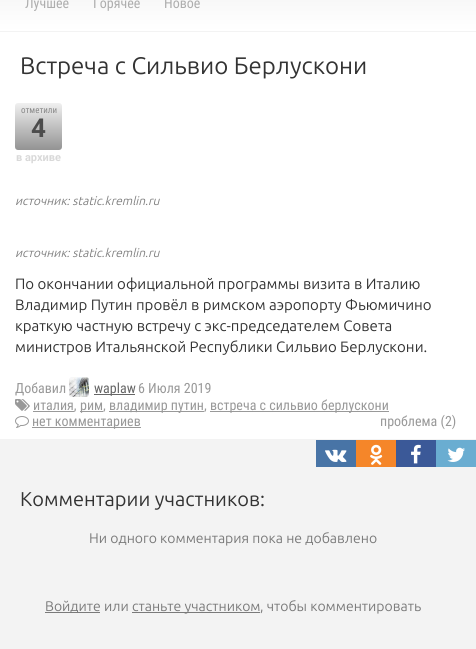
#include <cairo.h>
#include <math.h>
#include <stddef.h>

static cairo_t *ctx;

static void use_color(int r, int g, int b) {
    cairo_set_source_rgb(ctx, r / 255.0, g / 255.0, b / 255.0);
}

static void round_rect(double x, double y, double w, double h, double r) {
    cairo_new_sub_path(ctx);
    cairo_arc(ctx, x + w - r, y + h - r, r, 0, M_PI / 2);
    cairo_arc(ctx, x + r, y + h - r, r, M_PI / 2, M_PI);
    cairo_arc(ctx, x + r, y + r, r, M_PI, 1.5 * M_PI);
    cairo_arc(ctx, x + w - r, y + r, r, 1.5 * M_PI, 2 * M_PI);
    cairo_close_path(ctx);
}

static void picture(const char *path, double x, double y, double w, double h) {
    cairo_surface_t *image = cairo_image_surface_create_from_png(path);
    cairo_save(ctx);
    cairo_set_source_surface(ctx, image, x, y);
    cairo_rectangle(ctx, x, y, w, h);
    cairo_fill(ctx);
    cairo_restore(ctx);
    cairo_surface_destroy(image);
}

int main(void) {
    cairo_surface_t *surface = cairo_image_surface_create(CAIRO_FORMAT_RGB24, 476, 649);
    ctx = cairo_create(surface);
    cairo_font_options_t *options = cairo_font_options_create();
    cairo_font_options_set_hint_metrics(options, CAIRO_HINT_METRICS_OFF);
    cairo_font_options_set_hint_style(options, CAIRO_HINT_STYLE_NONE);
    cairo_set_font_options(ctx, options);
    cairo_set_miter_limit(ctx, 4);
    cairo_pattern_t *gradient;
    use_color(243, 243, 243);
    cairo_paint(ctx);
    gradient = cairo_pattern_create_linear(238, -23, 238, 31);
    cairo_pattern_add_color_stop_rgba(gradient, 0, 0.953, 0.953, 0.953, 1);
    cairo_pattern_add_color_stop_rgba(gradient, 1, 1, 1, 1, 1);
    cairo_set_source(ctx, gradient);
    cairo_pattern_destroy(gradient);
    cairo_rectangle(ctx, 0, 0, 476, 31);
    cairo_fill(ctx);
    cairo_select_font_face(ctx, "Roboto Condensed", CAIRO_FONT_SLANT_NORMAL, CAIRO_FONT_WEIGHT_NORMAL);
    cairo_set_font_size(ctx, 14);
    use_color(174, 174, 174);
    cairo_move_to(ctx, 25, 8);
    cairo_show_text(ctx, "Лучшее");
    cairo_move_to(ctx, 93, 8);
    cairo_show_text(ctx, "Горячее");
    cairo_move_to(ctx, 164, 8);
    cairo_show_text(ctx, "Новое");
    use_color(255, 255, 255);
    cairo_rectangle(ctx, 0, 32, 476, 407);
    cairo_fill(ctx);
    cairo_select_font_face(ctx, "Ubuntu", CAIRO_FONT_SLANT_NORMAL, CAIRO_FONT_WEIGHT_NORMAL);
    cairo_set_font_size(ctx, 24);
    use_color(51, 51, 51);
    cairo_move_to(ctx, 20, 74);
    cairo_show_text(ctx, "Встреча с Сильвио Берлускони");
    gradient = cairo_pattern_create_linear(39, 103, 39, 150);
    cairo_pattern_add_color_stop_rgba(gradient, 0, 0.941, 0.941, 0.941, 1);
    cairo_pattern_add_color_stop_rgba(gradient, 1, 0.576, 0.576, 0.576, 1);
    cairo_set_source(ctx, gradient);
    cairo_pattern_destroy(gradient);
    round_rect(15, 103, 47, 47, 3);
    cairo_fill(ctx);
    cairo_select_font_face(ctx, "Roboto Condensed", CAIRO_FONT_SLANT_NORMAL, CAIRO_FONT_WEIGHT_NORMAL);
    cairo_set_font_size(ctx, 9);
    use_color(135, 135, 135);
    cairo_move_to(ctx, 21, 113);
    cairo_show_text(ctx, "отметили");
    cairo_select_font_face(ctx, "Roboto", CAIRO_FONT_SLANT_NORMAL, CAIRO_FONT_WEIGHT_BOLD);
    cairo_set_font_size(ctx, 26);
    use_color(76, 76, 76);
    cairo_move_to(ctx, 31, 137);
    cairo_show_text(ctx, "4");
    cairo_set_font_size(ctx, 11);
    use_color(217, 217, 217);
    cairo_move_to(ctx, 16, 161);
    cairo_show_text(ctx, "в архиве");
    cairo_select_font_face(ctx, "Ubuntu", CAIRO_FONT_SLANT_ITALIC, CAIRO_FONT_WEIGHT_NORMAL);
    cairo_set_font_size(ctx, 12);
    use_color(128, 128, 128);
    cairo_move_to(ctx, 15, 205);
    cairo_show_text(ctx, "источник: static.kremlin.ru");
    cairo_move_to(ctx, 15, 257);
    cairo_show_text(ctx, "источник: static.kremlin.ru");
    cairo_select_font_face(ctx, "Ubuntu", CAIRO_FONT_SLANT_NORMAL, CAIRO_FONT_WEIGHT_NORMAL);
    cairo_set_font_size(ctx, 15);
    use_color(51, 51, 51);
    cairo_move_to(ctx, 15, 289);
    cairo_show_text(ctx, "По окончании официальной программы визита в Италию");
    cairo_move_to(ctx, 15, 310);
    cairo_show_text(ctx, "Владимир Путин провёл в римском аэропорту Фьюмичино");
    cairo_move_to(ctx, 15, 331);
    cairo_show_text(ctx, "краткую частную встречу с экс-председателем Совета");
    cairo_move_to(ctx, 15, 352);
    cairo_show_text(ctx, "министров Итальянской Республики Сильвио Берлускони.");
    cairo_select_font_face(ctx, "Roboto Condensed", CAIRO_FONT_SLANT_NORMAL, CAIRO_FONT_WEIGHT_NORMAL);
    cairo_set_font_size(ctx, 14);
    use_color(153, 153, 153);
    cairo_move_to(ctx, 15, 393);
    cairo_show_text(ctx, "Добавил");
    picture("img1.png", 69, 377, 20, 20);
    use_color(102, 102, 102);
    cairo_rectangle(ctx, 94, 394, 41, 1);
    cairo_fill(ctx);
    cairo_move_to(ctx, 94, 393);
    cairo_show_text(ctx, "waplaw");
    use_color(153, 153, 153);
    cairo_move_to(ctx, 138, 393);
    cairo_show_text(ctx, "6 Июля 2019");
    picture("img2.png", 15, 399, 15, 12);
    cairo_rectangle(ctx, 33, 411, 41, 1);
    cairo_fill(ctx);
    cairo_move_to(ctx, 33, 410);
    cairo_show_text(ctx, "италия,");
    cairo_rectangle(ctx, 80, 411, 23, 1);
    cairo_fill(ctx);
    cairo_move_to(ctx, 80, 410);
    cairo_show_text(ctx, "рим,");
    cairo_rectangle(ctx, 109, 411, 95, 1);
    cairo_fill(ctx);
    cairo_move_to(ctx, 109, 410);
    cairo_show_text(ctx, "владимир путин,");
    cairo_rectangle(ctx, 210, 411, 179, 1);
    cairo_fill(ctx);
    cairo_move_to(ctx, 210, 410);
    cairo_show_text(ctx, "встреча с сильвио берлускони");
    picture("img3.png", 15, 416, 14, 12);
    cairo_rectangle(ctx, 32, 427, 109, 1);
    cairo_fill(ctx);
    cairo_move_to(ctx, 32, 426);
    cairo_show_text(ctx, "нет комментариев");
    cairo_move_to(ctx, 380, 426);
    cairo_show_text(ctx, "проблема (2)");
    use_color(72, 116, 166);
    cairo_rectangle(ctx, 316, 440, 40, 27);
    cairo_fill(ctx);
    picture("img4.png", 325, 449, 22, 13);
    use_color(245, 134, 41);
    cairo_rectangle(ctx, 356, 440, 40, 27);
    cairo_fill(ctx);
    picture("img5.png", 370, 444, 13, 21);
    use_color(59, 89, 152);
    cairo_rectangle(ctx, 396, 440, 40, 27);
    cairo_fill(ctx);
    picture("img6.png", 411, 444, 10, 20);
    use_color(106, 173, 209);
    cairo_rectangle(ctx, 436, 440, 40, 27);
    cairo_fill(ctx);
    picture("img7.png", 447, 447, 18, 15);
    cairo_select_font_face(ctx, "Ubuntu", CAIRO_FONT_SLANT_NORMAL, CAIRO_FONT_WEIGHT_NORMAL);
    cairo_set_font_size(ctx, 20);
    use_color(51, 51, 51);
    cairo_move_to(ctx, 20, 506);
    cairo_show_text(ctx, "Комментарии участников:");
    cairo_set_font_size(ctx, 14);
    use_color(122, 122, 122);
    cairo_move_to(ctx, 89, 543);
    cairo_show_text(ctx, "Ни одного комментария пока не добавлено");
    cairo_rectangle(ctx, 45, 612, 55, 1);
    cairo_fill(ctx);
    cairo_move_to(ctx, 45, 611);
    cairo_show_text(ctx, "Войдите");
    cairo_move_to(ctx, 104, 611);
    cairo_show_text(ctx, "или");
    cairo_rectangle(ctx, 132, 612, 128, 1);
    cairo_fill(ctx);
    cairo_move_to(ctx, 132, 611);
    cairo_show_text(ctx, "станьте участником");
    cairo_move_to(ctx, 260, 611);
    cairo_show_text(ctx, ", чтобы комментировать");
    cairo_surface_write_to_png(surface, "result.png");
    cairo_font_options_destroy(options);
    cairo_destroy(ctx);
    cairo_surface_destroy(surface);
    return 0;
}
